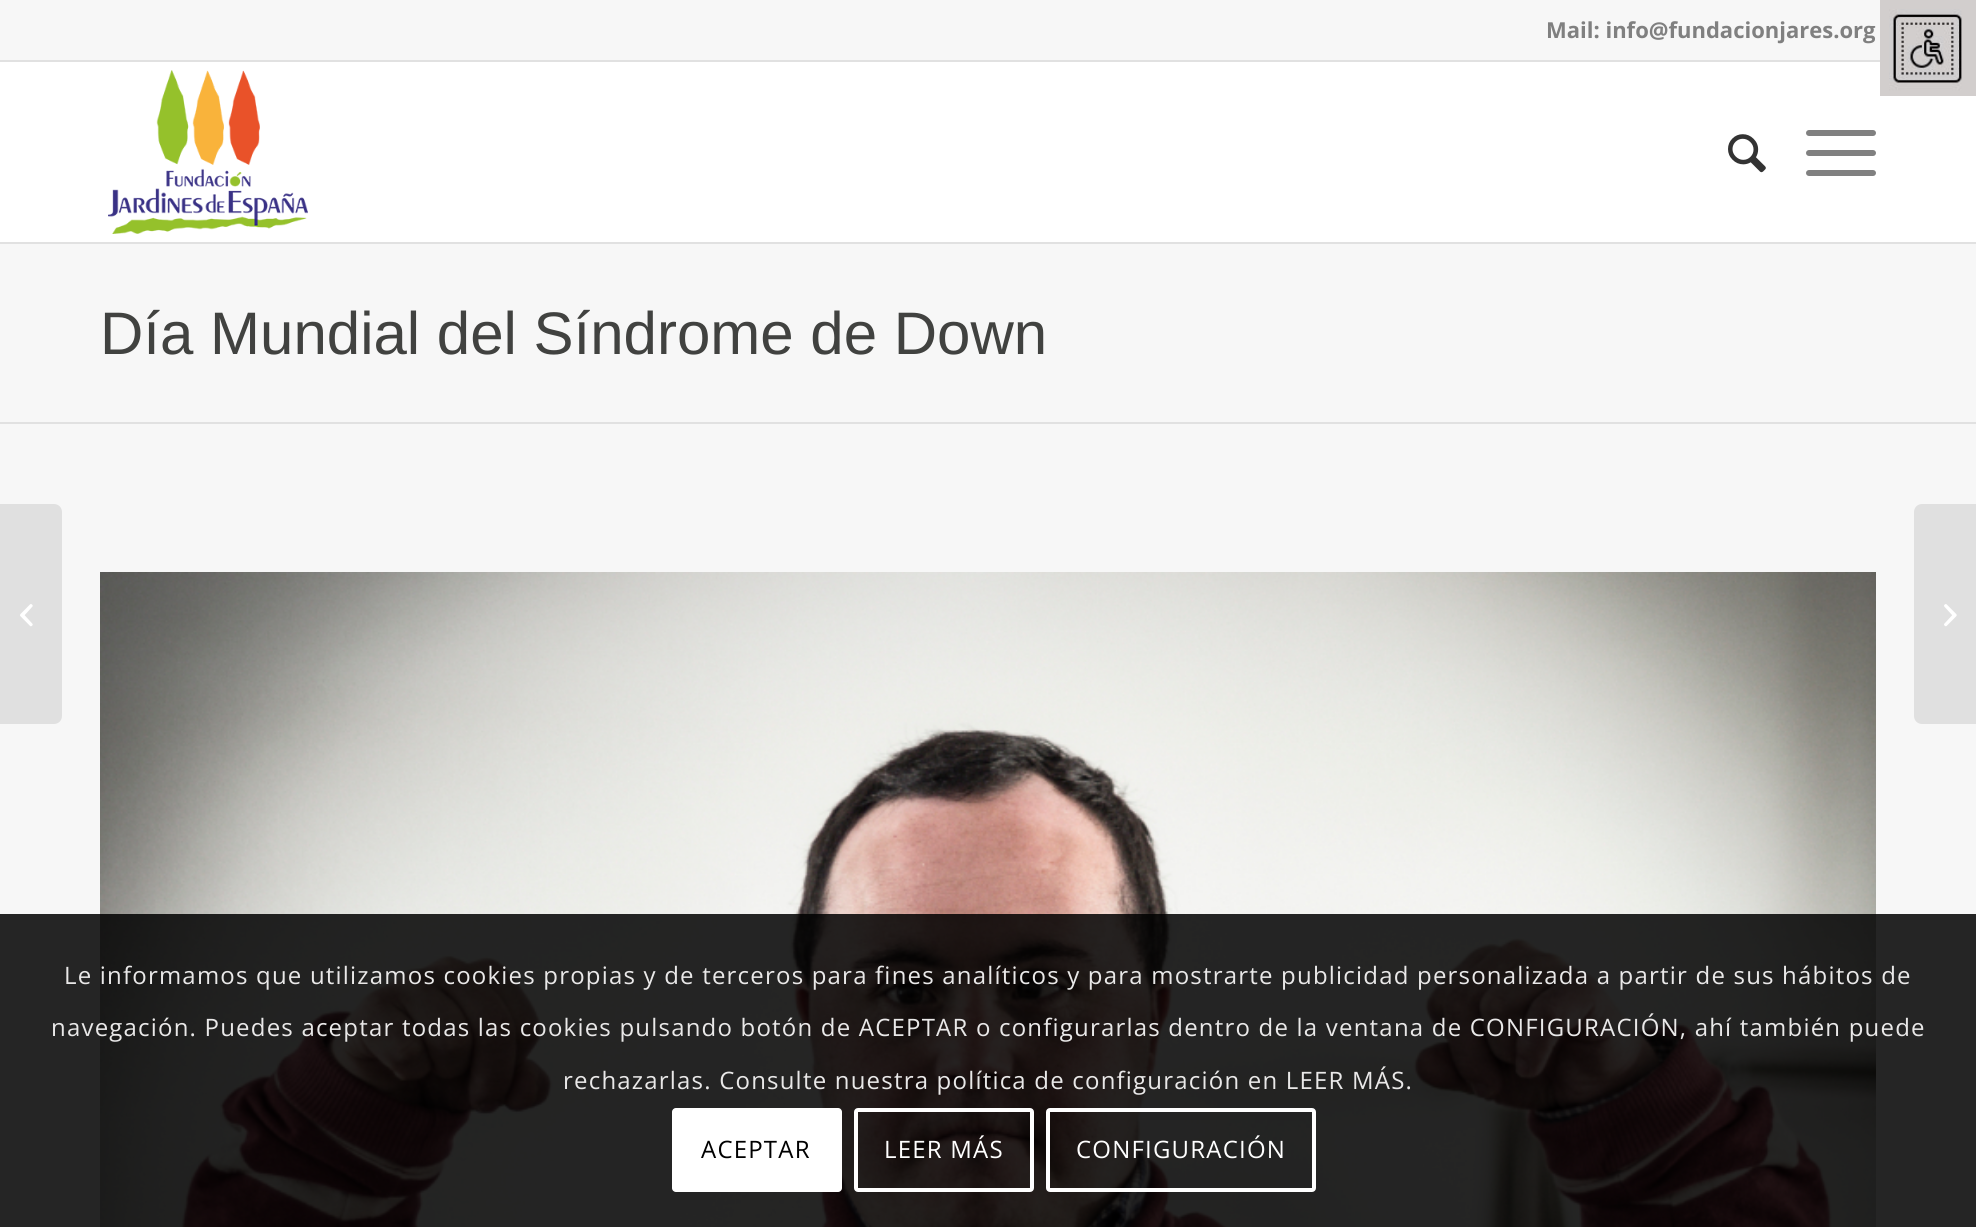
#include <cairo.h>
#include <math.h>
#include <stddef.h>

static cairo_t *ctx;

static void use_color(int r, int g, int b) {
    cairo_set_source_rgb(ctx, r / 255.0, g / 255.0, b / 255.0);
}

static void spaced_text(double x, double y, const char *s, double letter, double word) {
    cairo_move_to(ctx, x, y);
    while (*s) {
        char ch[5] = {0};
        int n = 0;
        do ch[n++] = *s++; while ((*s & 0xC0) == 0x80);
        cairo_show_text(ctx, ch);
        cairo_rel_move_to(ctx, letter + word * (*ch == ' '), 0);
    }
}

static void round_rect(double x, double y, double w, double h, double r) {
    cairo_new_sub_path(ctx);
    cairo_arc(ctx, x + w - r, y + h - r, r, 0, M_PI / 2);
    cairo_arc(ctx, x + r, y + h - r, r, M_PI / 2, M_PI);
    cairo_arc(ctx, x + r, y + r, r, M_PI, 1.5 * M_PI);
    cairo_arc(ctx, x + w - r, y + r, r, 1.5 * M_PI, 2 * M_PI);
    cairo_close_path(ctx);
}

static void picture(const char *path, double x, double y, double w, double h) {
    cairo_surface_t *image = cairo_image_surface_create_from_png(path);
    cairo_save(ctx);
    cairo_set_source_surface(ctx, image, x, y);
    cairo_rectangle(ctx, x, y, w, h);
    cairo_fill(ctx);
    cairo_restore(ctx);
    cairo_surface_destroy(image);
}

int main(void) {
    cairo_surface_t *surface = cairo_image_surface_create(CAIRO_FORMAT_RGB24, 1976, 1227);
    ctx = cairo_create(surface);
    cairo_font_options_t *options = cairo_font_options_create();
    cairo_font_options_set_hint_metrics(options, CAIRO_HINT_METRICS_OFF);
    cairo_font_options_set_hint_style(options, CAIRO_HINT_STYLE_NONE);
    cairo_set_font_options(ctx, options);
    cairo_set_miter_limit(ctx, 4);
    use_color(247, 247, 247);
    cairo_paint(ctx);
    use_color(225, 225, 225);
    cairo_rectangle(ctx, 0, 60, 1880, 2);
    cairo_fill(ctx);
    cairo_select_font_face(ctx, "Open Sans", CAIRO_FONT_SLANT_NORMAL, CAIRO_FONT_WEIGHT_BOLD);
    cairo_set_font_size(ctx, 22);
    use_color(128, 128, 128);
    cairo_move_to(ctx, 1546, 38);
    cairo_show_text(ctx, "Mail: info@fundacionjares.org");
    use_color(255, 255, 255);
    cairo_rectangle(ctx, 0, 62, 1976, 180);
    cairo_fill(ctx);
    use_color(225, 225, 225);
    cairo_rectangle(ctx, 0, 242, 1976, 2);
    cairo_fill(ctx);
    picture("img1.png", 108, 70, 200, 164);
    picture("img2.png", 1728, 134, 38, 39);
    use_color(128, 128, 128);
    round_rect(1806, 150, 70, 6, 3);
    cairo_fill(ctx);
    round_rect(1806, 130, 70, 6, 3);
    cairo_fill(ctx);
    round_rect(1806, 170, 70, 6, 3);
    cairo_fill(ctx);
    cairo_select_font_face(ctx, "Liberation Sans", CAIRO_FONT_SLANT_NORMAL, CAIRO_FONT_WEIGHT_NORMAL);
    cairo_set_font_size(ctx, 60);
    use_color(65, 66, 64);
    cairo_move_to(ctx, 100, 354);
    cairo_show_text(ctx, "Día Mundial del Síndrome de Down");
    use_color(225, 225, 225);
    cairo_rectangle(ctx, 0, 422, 1976, 2);
    cairo_fill(ctx);
    picture("img3.png", 100, 572, 1776, 655);
    use_color(224, 224, 224);
    cairo_new_path(ctx);
    cairo_move_to(ctx, 0, 504);
    cairo_line_to(ctx, 54, 504);
    cairo_curve_to(ctx, 58.5, 504, 62, 507.5, 62, 512);
    cairo_line_to(ctx, 62, 716);
    cairo_curve_to(ctx, 62, 720.5, 58.5, 724, 54, 724);
    cairo_line_to(ctx, 0, 724);
    cairo_close_path(ctx);
    cairo_fill(ctx);
    picture("img4.png", 20, 604, 13, 23);
    cairo_new_path(ctx);
    cairo_move_to(ctx, 1922, 504);
    cairo_line_to(ctx, 1976, 504);
    cairo_line_to(ctx, 1976, 724);
    cairo_line_to(ctx, 1922, 724);
    cairo_curve_to(ctx, 1917.5, 724, 1914, 720.5, 1914, 716);
    cairo_line_to(ctx, 1914, 512);
    cairo_curve_to(ctx, 1914, 507.5, 1917.5, 504, 1922, 504);
    cairo_close_path(ctx);
    cairo_fill(ctx);
    picture("img5.png", 1944, 604, 13, 23);
    picture("img6.png", 1880, 0, 96, 96);
    cairo_set_source_rgba(ctx, 0, 0, 0, 0.85);
    cairo_rectangle(ctx, 0, 914, 1976, 313);
    cairo_fill(ctx);
    cairo_select_font_face(ctx, "Open Sans", CAIRO_FONT_SLANT_NORMAL, CAIRO_FONT_WEIGHT_NORMAL);
    cairo_set_font_size(ctx, 24);
    use_color(233, 232, 232);
    spaced_text(64, 984, "Le informamos que utilizamos cookies propias y de terceros para fines analíticos y para mostrarte publicidad personalizada a partir de sus hábitos de", 1.2, 0);
    spaced_text(51, 1036, "navegación. Puedes aceptar todas las cookies pulsando botón de ACEPTAR o configurarlas dentro de la ventana de CONFIGURACIÓN, ahí también puede", 1.2, 0);
    spaced_text(563, 1089, "rechazarlas. Consulte nuestra política de configuración en LEER MÁS.", 1.2, 0);
    use_color(255, 255, 255);
    round_rect(672, 1108, 170, 84, 4);
    cairo_fill(ctx);
    use_color(0, 0, 0);
    spaced_text(701, 1158, "ACEPTAR", 1.2, 0);
    round_rect(856, 1110, 176, 80, 2);
    use_color(255, 255, 255);
    cairo_set_line_width(ctx, 4);
    cairo_stroke(ctx);
    spaced_text(884, 1158, "LEER MÁS", 1.2, 0);
    round_rect(1048, 1110, 266, 80, 2);
    cairo_stroke(ctx);
    spaced_text(1076, 1158, "CONFIGURACIÓN", 1.2, 0);
    cairo_surface_write_to_png(surface, "result.png");
    cairo_font_options_destroy(options);
    cairo_destroy(ctx);
    cairo_surface_destroy(surface);
    return 0;
}
